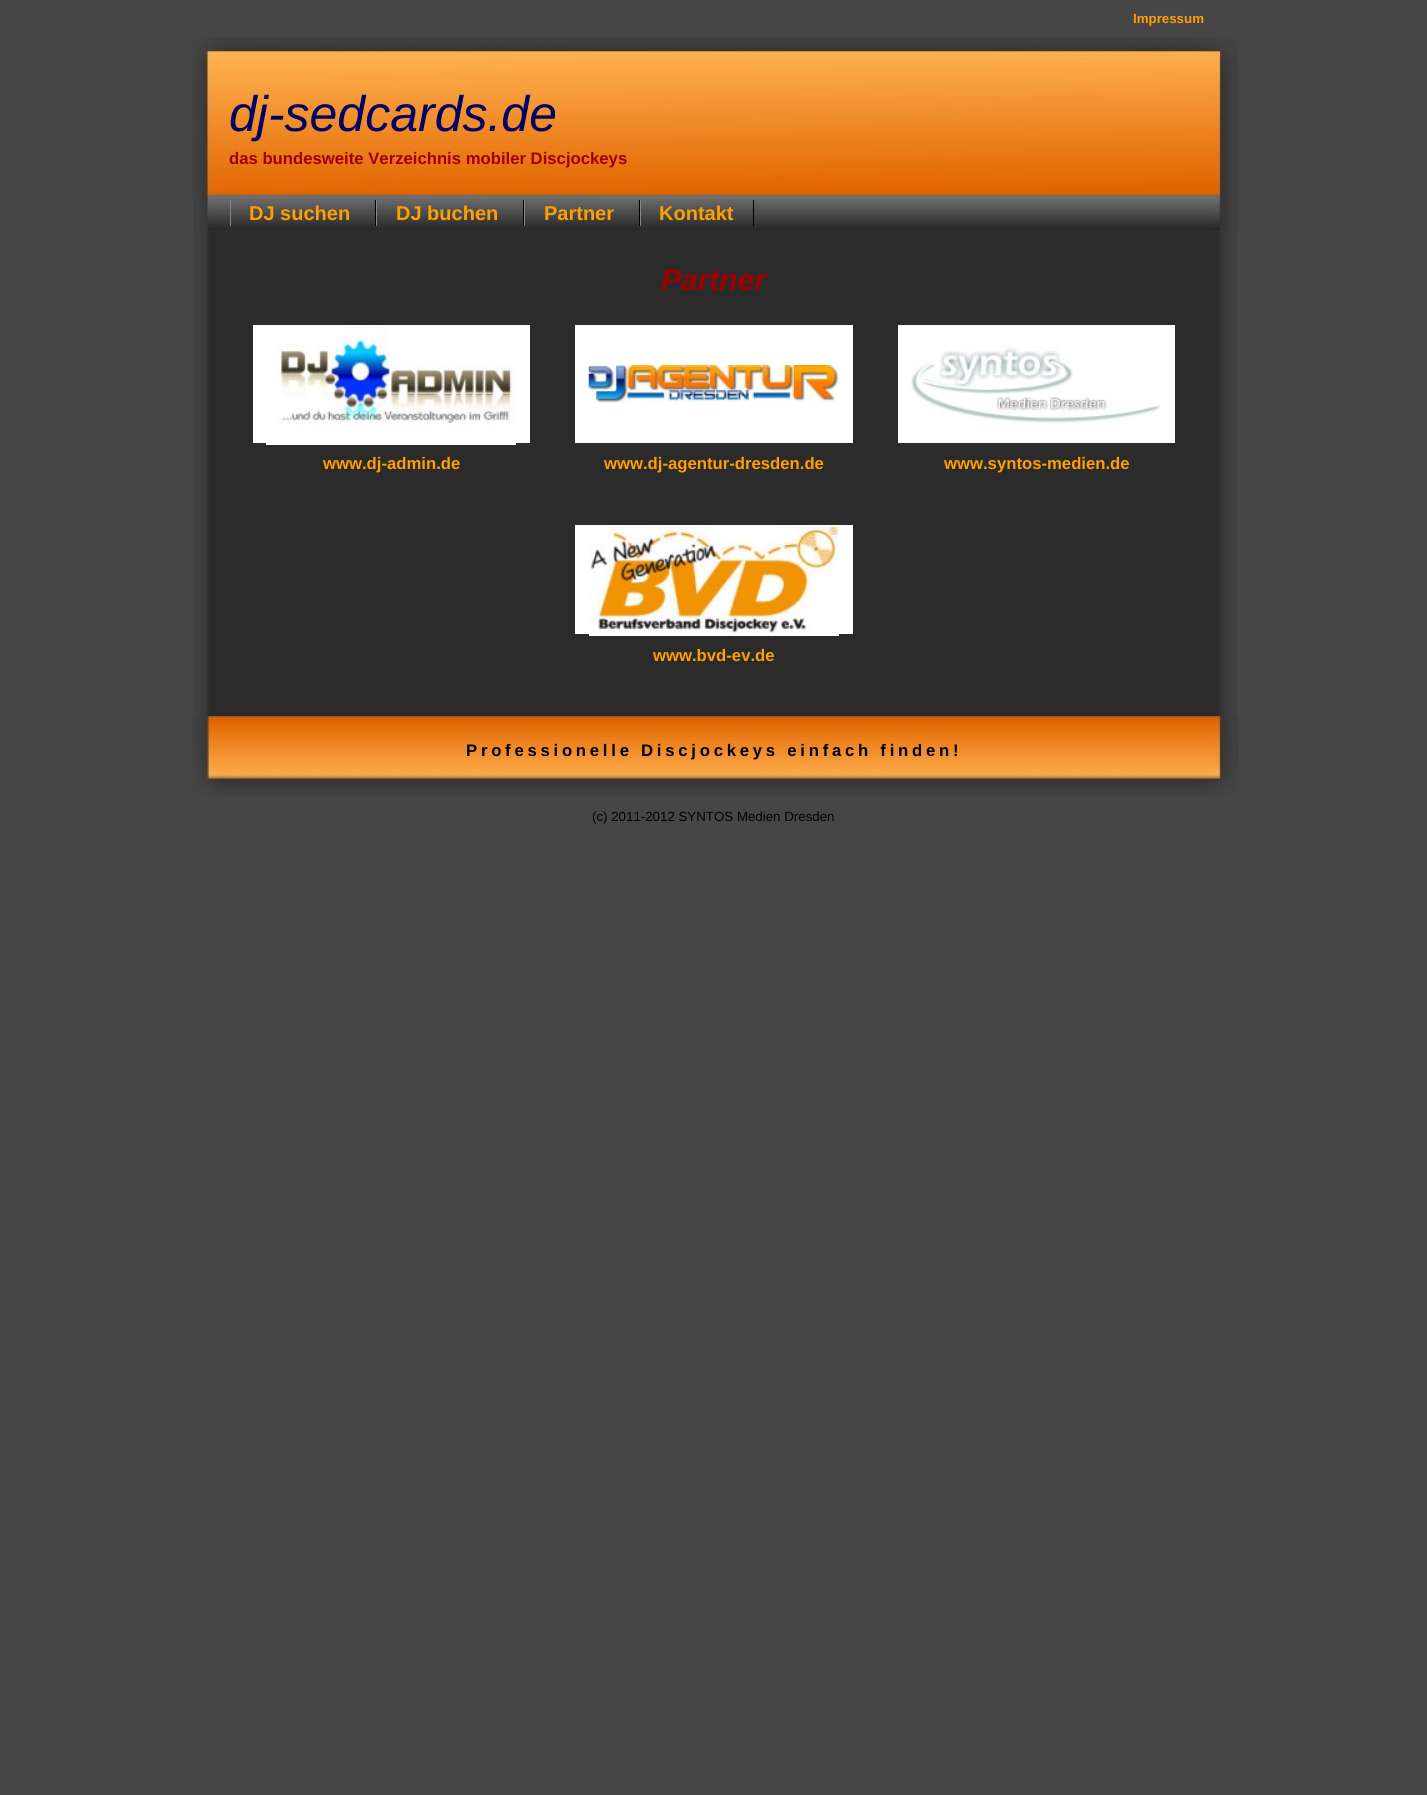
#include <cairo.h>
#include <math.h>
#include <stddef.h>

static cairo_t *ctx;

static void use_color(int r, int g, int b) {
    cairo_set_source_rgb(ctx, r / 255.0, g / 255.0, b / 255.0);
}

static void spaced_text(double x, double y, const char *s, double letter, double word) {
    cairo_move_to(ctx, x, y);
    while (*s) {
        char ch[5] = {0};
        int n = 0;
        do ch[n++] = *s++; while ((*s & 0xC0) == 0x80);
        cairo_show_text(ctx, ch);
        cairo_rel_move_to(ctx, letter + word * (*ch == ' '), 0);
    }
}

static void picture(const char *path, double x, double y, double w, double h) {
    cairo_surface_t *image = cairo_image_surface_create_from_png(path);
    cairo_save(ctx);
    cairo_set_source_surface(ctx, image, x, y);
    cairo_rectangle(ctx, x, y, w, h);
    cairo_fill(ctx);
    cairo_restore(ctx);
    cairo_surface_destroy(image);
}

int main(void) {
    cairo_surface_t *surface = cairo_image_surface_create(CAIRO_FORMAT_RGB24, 1427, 1795);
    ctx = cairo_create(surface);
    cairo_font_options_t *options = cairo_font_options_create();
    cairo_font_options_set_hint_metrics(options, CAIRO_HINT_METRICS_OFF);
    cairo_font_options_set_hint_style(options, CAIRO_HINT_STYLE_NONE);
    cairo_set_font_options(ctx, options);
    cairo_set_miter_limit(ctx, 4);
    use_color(70, 70, 70);
    cairo_paint(ctx);
    picture("img1.png", 192, 37, 1046, 158);
    cairo_select_font_face(ctx, "Liberation Sans", CAIRO_FONT_SLANT_NORMAL, CAIRO_FONT_WEIGHT_BOLD);
    cairo_set_font_size(ctx, 13.3);
    use_color(255, 159, 0);
    cairo_move_to(ctx, 1133, 23);
    cairo_show_text(ctx, "Impressum");
    cairo_select_font_face(ctx, "Liberation Sans", CAIRO_FONT_SLANT_ITALIC, CAIRO_FONT_WEIGHT_NORMAL);
    cairo_set_font_size(ctx, 50);
    use_color(0, 0, 102);
    cairo_move_to(ctx, 229, 131);
    cairo_show_text(ctx, "dj-sedcards.de");
    cairo_select_font_face(ctx, "Liberation Sans", CAIRO_FONT_SLANT_NORMAL, CAIRO_FONT_WEIGHT_BOLD);
    cairo_set_font_size(ctx, 16.7);
    use_color(159, 0, 0);
    cairo_move_to(ctx, 229, 164);
    cairo_show_text(ctx, "das bundesweite Verzeichnis mobiler Discjockeys");
    picture("img2.png", 193, 195, 1045, 37);
    cairo_set_font_size(ctx, 20);
    use_color(255, 159, 0);
    cairo_move_to(ctx, 249, 220);
    cairo_show_text(ctx, "DJ suchen");
    use_color(0, 0, 0);
    cairo_rectangle(ctx, 375, 200, 1, 26);
    cairo_fill(ctx);
    use_color(134, 134, 134);
    cairo_rectangle(ctx, 230, 200, 1, 26);
    cairo_fill(ctx);
    use_color(255, 159, 0);
    cairo_move_to(ctx, 396, 220);
    cairo_show_text(ctx, "DJ buchen");
    use_color(0, 0, 0);
    cairo_rectangle(ctx, 523, 200, 1, 26);
    cairo_fill(ctx);
    use_color(134, 134, 134);
    cairo_rectangle(ctx, 376, 200, 1, 26);
    cairo_fill(ctx);
    use_color(255, 159, 0);
    cairo_move_to(ctx, 544, 220);
    cairo_show_text(ctx, "Partner");
    use_color(0, 0, 0);
    cairo_rectangle(ctx, 639, 200, 1, 26);
    cairo_fill(ctx);
    use_color(134, 134, 134);
    cairo_rectangle(ctx, 524, 200, 1, 26);
    cairo_fill(ctx);
    use_color(255, 159, 0);
    cairo_move_to(ctx, 659, 220);
    cairo_show_text(ctx, "Kontakt");
    use_color(0, 0, 0);
    cairo_rectangle(ctx, 753, 200, 1, 26);
    cairo_fill(ctx);
    use_color(134, 134, 134);
    cairo_rectangle(ctx, 640, 200, 1, 26);
    cairo_fill(ctx);
    picture("img3.png", 194, 231, 1043, 486);
    cairo_select_font_face(ctx, "Liberation Sans", CAIRO_FONT_SLANT_ITALIC, CAIRO_FONT_WEIGHT_BOLD);
    cairo_set_font_size(ctx, 30);
    use_color(159, 0, 0);
    cairo_move_to(ctx, 661, 290);
    cairo_show_text(ctx, "Partner");
    use_color(255, 255, 255);
    cairo_rectangle(ctx, 253, 325, 277, 118);
    cairo_fill(ctx);
    picture("img4.png", 278, 326, 238, 101);
    cairo_rectangle(ctx, 266, 443, 250, 2);
    cairo_fill(ctx);
    cairo_rectangle(ctx, 575, 325, 278, 118);
    cairo_fill(ctx);
    picture("img5.png", 588, 365, 251, 38);
    cairo_rectangle(ctx, 898, 325, 277, 118);
    cairo_fill(ctx);
    picture("img6.png", 911, 346, 249, 77);
    cairo_select_font_face(ctx, "Liberation Sans", CAIRO_FONT_SLANT_NORMAL, CAIRO_FONT_WEIGHT_BOLD);
    cairo_set_font_size(ctx, 16.7);
    use_color(255, 159, 0);
    cairo_move_to(ctx, 323, 469);
    cairo_show_text(ctx, "www.dj-admin.de");
    cairo_move_to(ctx, 604, 469);
    cairo_show_text(ctx, "www.dj-agentur-dresden.de");
    cairo_move_to(ctx, 944, 469);
    cairo_show_text(ctx, "www.syntos-medien.de");
    use_color(255, 255, 255);
    cairo_rectangle(ctx, 575, 525, 278, 109);
    cairo_fill(ctx);
    picture("img7.png", 589, 526, 250, 107);
    cairo_rectangle(ctx, 589, 634, 250, 2);
    cairo_fill(ctx);
    use_color(255, 159, 0);
    cairo_move_to(ctx, 653, 661);
    cairo_show_text(ctx, "www.bvd-ev.de");
    picture("img8.png", 192, 716, 1047, 81);
    use_color(0, 0, 0);
    spaced_text(466, 756, "Professionelle Discjockeys einfach finden!", 3.75, 0);
    cairo_select_font_face(ctx, "Liberation Sans", CAIRO_FONT_SLANT_NORMAL, CAIRO_FONT_WEIGHT_NORMAL);
    cairo_set_font_size(ctx, 13.3);
    cairo_move_to(ctx, 592, 821);
    cairo_show_text(ctx, "(c) 2011-2012 SYNTOS Medien Dresden");
    cairo_surface_write_to_png(surface, "result.png");
    cairo_font_options_destroy(options);
    cairo_destroy(ctx);
    cairo_surface_destroy(surface);
    return 0;
}
